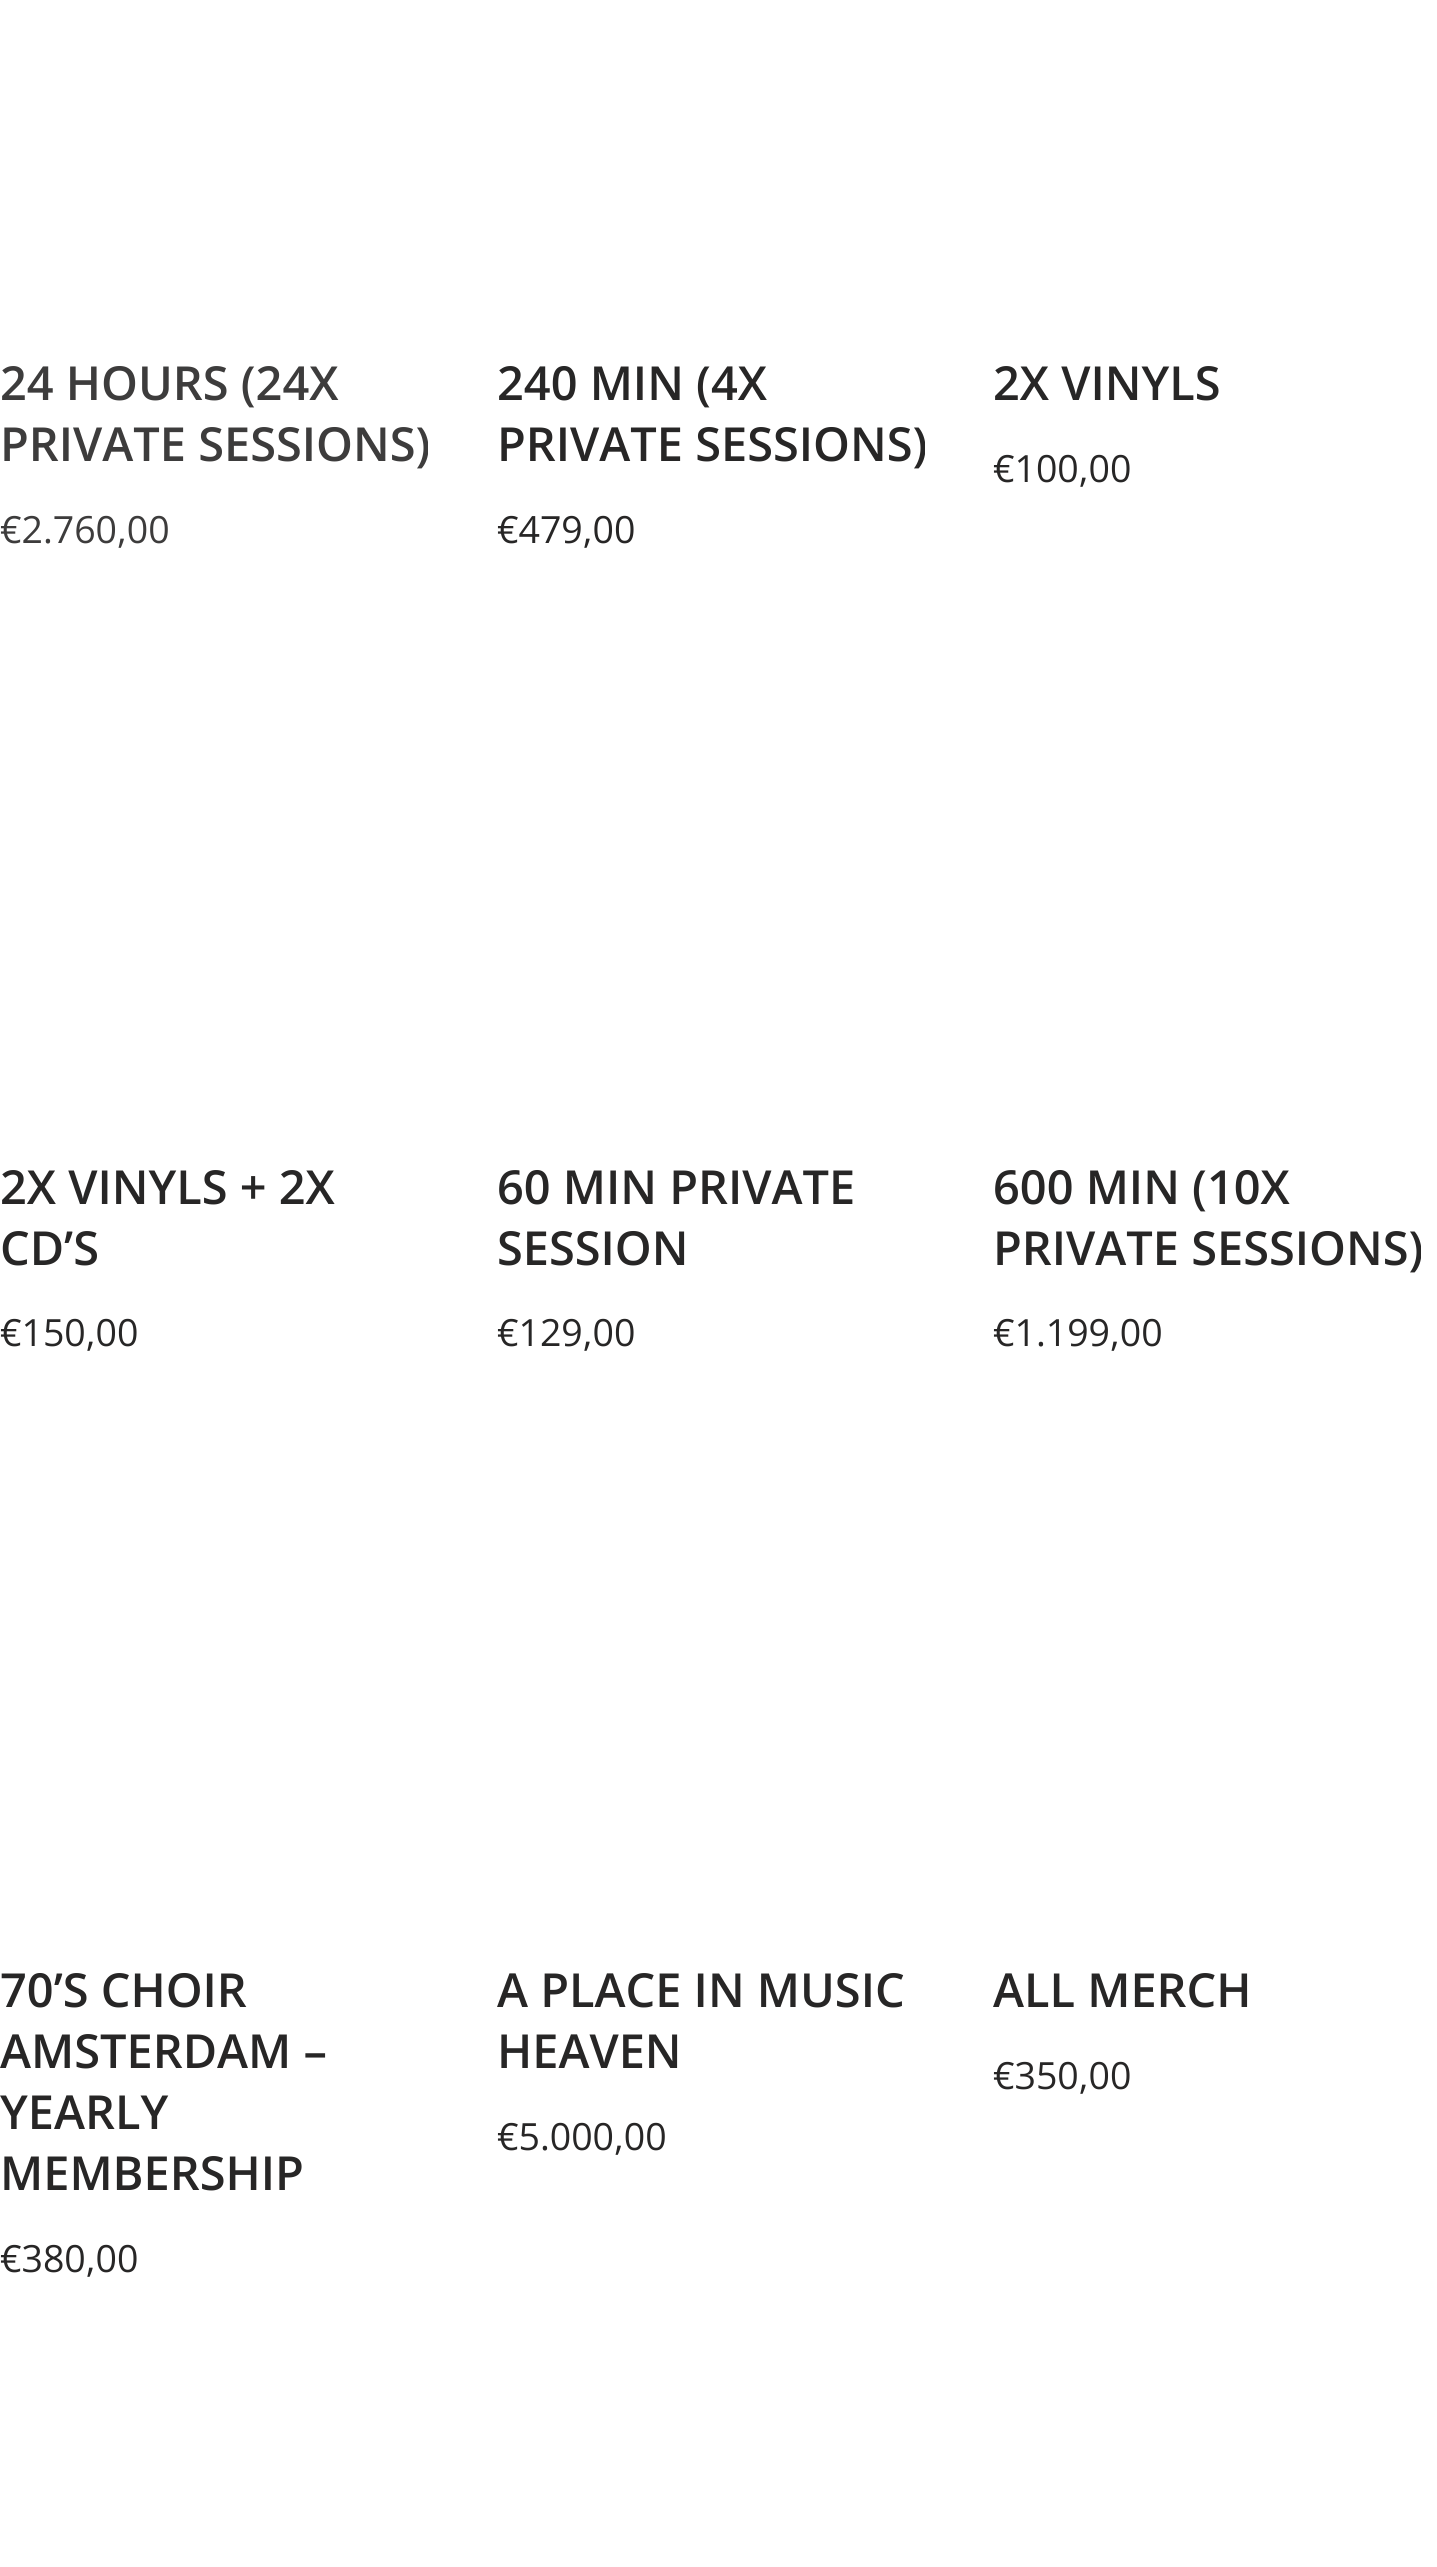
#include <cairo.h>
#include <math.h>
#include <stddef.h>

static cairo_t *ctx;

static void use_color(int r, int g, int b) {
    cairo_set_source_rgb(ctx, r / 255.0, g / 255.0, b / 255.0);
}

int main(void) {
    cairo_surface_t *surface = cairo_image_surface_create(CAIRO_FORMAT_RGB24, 1437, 2567);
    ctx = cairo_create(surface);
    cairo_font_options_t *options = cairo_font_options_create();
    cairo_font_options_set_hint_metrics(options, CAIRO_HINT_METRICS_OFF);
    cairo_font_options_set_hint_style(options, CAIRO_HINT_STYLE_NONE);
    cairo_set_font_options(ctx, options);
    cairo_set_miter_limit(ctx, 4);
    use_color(255, 255, 255);
    cairo_paint(ctx);
    cairo_select_font_face(ctx, "Open Sans SemiBold", CAIRO_FONT_SLANT_NORMAL, CAIRO_FONT_WEIGHT_NORMAL);
    cairo_set_font_size(ctx, 46.9);
    use_color(61, 60, 60);
    cairo_move_to(ctx, 0, 400);
    cairo_show_text(ctx, "24 HOURS (24X");
    cairo_move_to(ctx, 0, 461);
    cairo_show_text(ctx, "PRIVATE SESSIONS)");
    cairo_select_font_face(ctx, "Open Sans", CAIRO_FONT_SLANT_NORMAL, CAIRO_FONT_WEIGHT_NORMAL);
    cairo_set_font_size(ctx, 37.5);
    cairo_move_to(ctx, 0, 543);
    cairo_show_text(ctx, "€2.760,00");
    cairo_select_font_face(ctx, "Open Sans SemiBold", CAIRO_FONT_SLANT_NORMAL, CAIRO_FONT_WEIGHT_NORMAL);
    cairo_set_font_size(ctx, 46.9);
    use_color(39, 38, 38);
    cairo_move_to(ctx, 497, 400);
    cairo_show_text(ctx, "240 MIN (4X");
    cairo_move_to(ctx, 497, 461);
    cairo_show_text(ctx, "PRIVATE SESSIONS)");
    cairo_select_font_face(ctx, "Open Sans", CAIRO_FONT_SLANT_NORMAL, CAIRO_FONT_WEIGHT_NORMAL);
    cairo_set_font_size(ctx, 37.5);
    cairo_move_to(ctx, 497, 543);
    cairo_show_text(ctx, "€479,00");
    cairo_select_font_face(ctx, "Open Sans SemiBold", CAIRO_FONT_SLANT_NORMAL, CAIRO_FONT_WEIGHT_NORMAL);
    cairo_set_font_size(ctx, 46.9);
    cairo_move_to(ctx, 993, 400);
    cairo_show_text(ctx, "2X VINYLS");
    cairo_select_font_face(ctx, "Open Sans", CAIRO_FONT_SLANT_NORMAL, CAIRO_FONT_WEIGHT_NORMAL);
    cairo_set_font_size(ctx, 37.5);
    cairo_move_to(ctx, 993, 482);
    cairo_show_text(ctx, "€100,00");
    cairo_select_font_face(ctx, "Open Sans SemiBold", CAIRO_FONT_SLANT_NORMAL, CAIRO_FONT_WEIGHT_NORMAL);
    cairo_set_font_size(ctx, 46.9);
    cairo_move_to(ctx, 0, 1204);
    cairo_show_text(ctx, "2X VINYLS + 2X");
    cairo_move_to(ctx, 0, 1265);
    cairo_show_text(ctx, "CD’S");
    cairo_select_font_face(ctx, "Open Sans", CAIRO_FONT_SLANT_NORMAL, CAIRO_FONT_WEIGHT_NORMAL);
    cairo_set_font_size(ctx, 37.5);
    cairo_move_to(ctx, 0, 1346);
    cairo_show_text(ctx, "€150,00");
    cairo_select_font_face(ctx, "Open Sans SemiBold", CAIRO_FONT_SLANT_NORMAL, CAIRO_FONT_WEIGHT_NORMAL);
    cairo_set_font_size(ctx, 46.9);
    cairo_move_to(ctx, 497, 1204);
    cairo_show_text(ctx, "60 MIN PRIVATE");
    cairo_move_to(ctx, 497, 1265);
    cairo_show_text(ctx, "SESSION");
    cairo_select_font_face(ctx, "Open Sans", CAIRO_FONT_SLANT_NORMAL, CAIRO_FONT_WEIGHT_NORMAL);
    cairo_set_font_size(ctx, 37.5);
    cairo_move_to(ctx, 497, 1346);
    cairo_show_text(ctx, "€129,00");
    cairo_select_font_face(ctx, "Open Sans SemiBold", CAIRO_FONT_SLANT_NORMAL, CAIRO_FONT_WEIGHT_NORMAL);
    cairo_set_font_size(ctx, 46.9);
    cairo_move_to(ctx, 993, 1204);
    cairo_show_text(ctx, "600 MIN (10X");
    cairo_move_to(ctx, 993, 1265);
    cairo_show_text(ctx, "PRIVATE SESSIONS)");
    cairo_select_font_face(ctx, "Open Sans", CAIRO_FONT_SLANT_NORMAL, CAIRO_FONT_WEIGHT_NORMAL);
    cairo_set_font_size(ctx, 37.5);
    cairo_move_to(ctx, 993, 1346);
    cairo_show_text(ctx, "€1.199,00");
    cairo_select_font_face(ctx, "Open Sans SemiBold", CAIRO_FONT_SLANT_NORMAL, CAIRO_FONT_WEIGHT_NORMAL);
    cairo_set_font_size(ctx, 46.9);
    cairo_move_to(ctx, 0, 2007);
    cairo_show_text(ctx, "70’S CHOIR");
    cairo_move_to(ctx, 0, 2068);
    cairo_show_text(ctx, "AMSTERDAM –");
    cairo_move_to(ctx, 0, 2129);
    cairo_show_text(ctx, "YEARLY");
    cairo_move_to(ctx, 0, 2190);
    cairo_show_text(ctx, "MEMBERSHIP");
    cairo_select_font_face(ctx, "Open Sans", CAIRO_FONT_SLANT_NORMAL, CAIRO_FONT_WEIGHT_NORMAL);
    cairo_set_font_size(ctx, 37.5);
    cairo_move_to(ctx, 0, 2272);
    cairo_show_text(ctx, "€380,00");
    cairo_select_font_face(ctx, "Open Sans SemiBold", CAIRO_FONT_SLANT_NORMAL, CAIRO_FONT_WEIGHT_NORMAL);
    cairo_set_font_size(ctx, 46.9);
    cairo_move_to(ctx, 497, 2007);
    cairo_show_text(ctx, "A PLACE IN MUSIC");
    cairo_move_to(ctx, 497, 2068);
    cairo_show_text(ctx, "HEAVEN");
    cairo_select_font_face(ctx, "Open Sans", CAIRO_FONT_SLANT_NORMAL, CAIRO_FONT_WEIGHT_NORMAL);
    cairo_set_font_size(ctx, 37.5);
    cairo_move_to(ctx, 497, 2150);
    cairo_show_text(ctx, "€5.000,00");
    cairo_select_font_face(ctx, "Open Sans SemiBold", CAIRO_FONT_SLANT_NORMAL, CAIRO_FONT_WEIGHT_NORMAL);
    cairo_set_font_size(ctx, 46.9);
    cairo_move_to(ctx, 993, 2007);
    cairo_show_text(ctx, "ALL MERCH");
    cairo_select_font_face(ctx, "Open Sans", CAIRO_FONT_SLANT_NORMAL, CAIRO_FONT_WEIGHT_NORMAL);
    cairo_set_font_size(ctx, 37.5);
    cairo_move_to(ctx, 993, 2089);
    cairo_show_text(ctx, "€350,00");
    cairo_surface_write_to_png(surface, "result.png");
    cairo_font_options_destroy(options);
    cairo_destroy(ctx);
    cairo_surface_destroy(surface);
    return 0;
}
